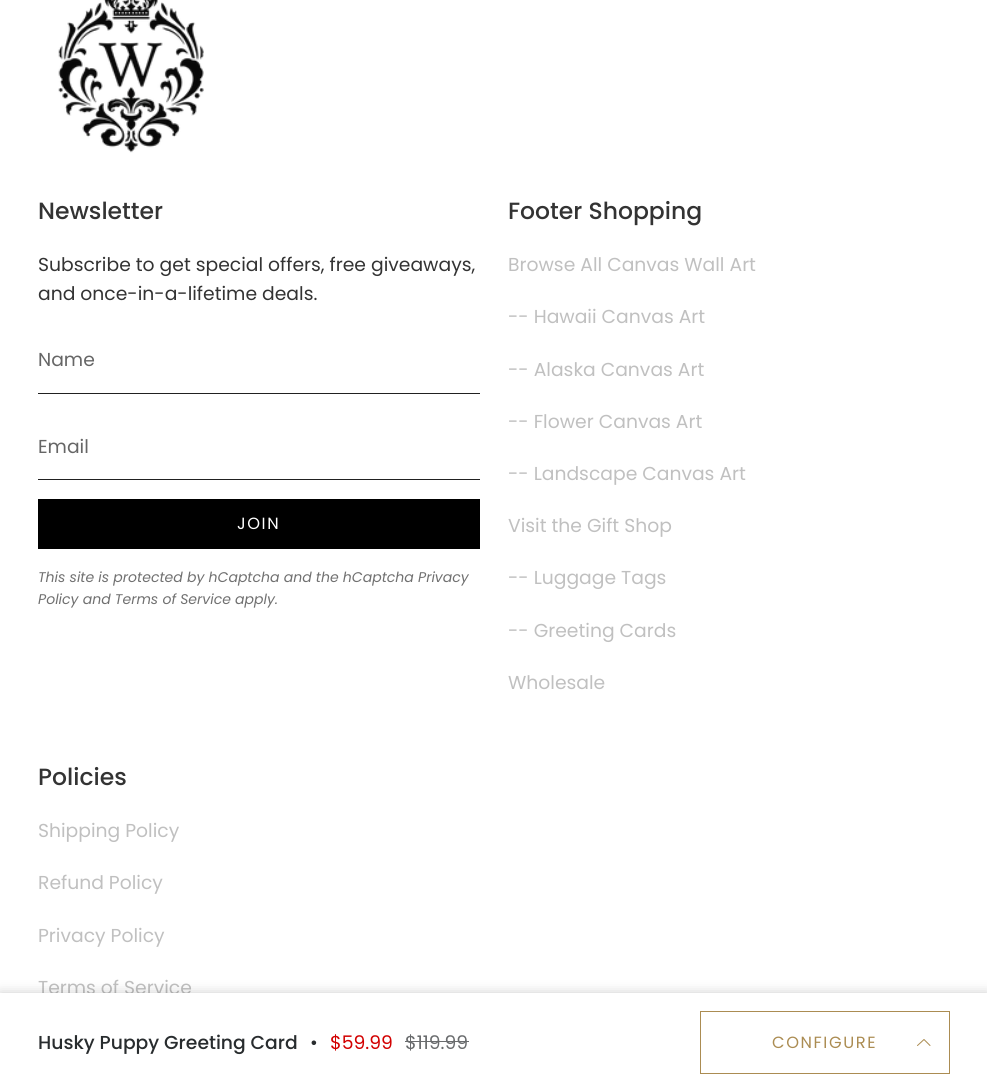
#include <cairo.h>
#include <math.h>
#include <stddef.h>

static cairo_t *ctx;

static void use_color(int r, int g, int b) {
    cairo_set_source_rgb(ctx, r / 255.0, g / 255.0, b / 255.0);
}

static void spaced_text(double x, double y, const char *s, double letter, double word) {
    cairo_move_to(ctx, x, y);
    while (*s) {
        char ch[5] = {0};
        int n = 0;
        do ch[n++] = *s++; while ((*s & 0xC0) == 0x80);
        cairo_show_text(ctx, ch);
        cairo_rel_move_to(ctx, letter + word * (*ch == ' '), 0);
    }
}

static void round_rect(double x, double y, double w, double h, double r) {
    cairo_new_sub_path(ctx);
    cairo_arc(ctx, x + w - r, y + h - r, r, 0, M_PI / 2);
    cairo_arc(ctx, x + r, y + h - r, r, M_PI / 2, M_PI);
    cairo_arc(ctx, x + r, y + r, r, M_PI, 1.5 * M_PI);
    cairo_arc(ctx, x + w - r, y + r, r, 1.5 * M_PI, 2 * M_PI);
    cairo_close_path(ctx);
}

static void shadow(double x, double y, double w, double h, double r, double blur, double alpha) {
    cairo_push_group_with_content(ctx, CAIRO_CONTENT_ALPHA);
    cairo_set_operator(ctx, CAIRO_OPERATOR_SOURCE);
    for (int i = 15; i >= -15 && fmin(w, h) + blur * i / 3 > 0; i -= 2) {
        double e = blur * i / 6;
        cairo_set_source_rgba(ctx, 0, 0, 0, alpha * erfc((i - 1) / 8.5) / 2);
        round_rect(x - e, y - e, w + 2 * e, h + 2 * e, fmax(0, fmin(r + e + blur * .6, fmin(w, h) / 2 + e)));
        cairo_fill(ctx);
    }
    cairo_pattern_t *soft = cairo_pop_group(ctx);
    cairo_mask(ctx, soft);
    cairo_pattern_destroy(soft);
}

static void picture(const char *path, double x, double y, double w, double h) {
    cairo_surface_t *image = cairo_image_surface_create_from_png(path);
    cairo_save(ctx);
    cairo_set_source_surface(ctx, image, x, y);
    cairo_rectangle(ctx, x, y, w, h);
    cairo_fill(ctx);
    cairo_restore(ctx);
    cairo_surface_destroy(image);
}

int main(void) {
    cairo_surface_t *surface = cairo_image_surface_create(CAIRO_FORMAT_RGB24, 987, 1092);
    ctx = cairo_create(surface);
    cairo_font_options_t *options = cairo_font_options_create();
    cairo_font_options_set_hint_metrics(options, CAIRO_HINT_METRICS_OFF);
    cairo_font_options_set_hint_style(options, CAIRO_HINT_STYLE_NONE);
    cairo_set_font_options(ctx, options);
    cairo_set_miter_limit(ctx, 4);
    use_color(255, 255, 255);
    cairo_paint(ctx);
    picture("img1.png", 58, 0, 146, 153);
    cairo_select_font_face(ctx, "Poppins Medium", CAIRO_FONT_SLANT_NORMAL, CAIRO_FONT_WEIGHT_NORMAL);
    cairo_set_font_size(ctx, 23.5);
    use_color(51, 51, 51);
    cairo_move_to(ctx, 38, 219);
    cairo_show_text(ctx, "Newsletter");
    cairo_select_font_face(ctx, "Poppins", CAIRO_FONT_SLANT_NORMAL, CAIRO_FONT_WEIGHT_NORMAL);
    cairo_set_font_size(ctx, 18.75);
    cairo_move_to(ctx, 38, 271);
    cairo_show_text(ctx, "Subscribe to get special offers, free giveaways,");
    cairo_move_to(ctx, 38, 300);
    cairo_show_text(ctx, "and once-in-a-lifetime deals.");
    use_color(33, 33, 33);
    cairo_rectangle(ctx, 38, 393, 442, 1);
    cairo_fill(ctx);
    use_color(102, 102, 102);
    cairo_move_to(ctx, 38, 366);
    cairo_show_text(ctx, "Name");
    use_color(33, 33, 33);
    cairo_rectangle(ctx, 38, 479, 442, 1);
    cairo_fill(ctx);
    use_color(102, 102, 102);
    cairo_move_to(ctx, 38, 453);
    cairo_show_text(ctx, "Email");
    use_color(0, 0, 0);
    cairo_rectangle(ctx, 38, 499, 442, 50);
    cairo_fill(ctx);
    cairo_set_font_size(ctx, 16.25);
    use_color(255, 255, 255);
    spaced_text(237, 529, "JOIN", 1.6, 0);
    cairo_select_font_face(ctx, "Poppins", CAIRO_FONT_SLANT_ITALIC, CAIRO_FONT_WEIGHT_NORMAL);
    cairo_set_font_size(ctx, 14.05);
    use_color(112, 112, 112);
    cairo_move_to(ctx, 38, 582);
    cairo_show_text(ctx, "This site is protected by hCaptcha and the hCaptcha Privacy");
    cairo_move_to(ctx, 38, 604);
    cairo_show_text(ctx, "Policy and Terms of Service apply.");
    cairo_select_font_face(ctx, "Poppins Medium", CAIRO_FONT_SLANT_NORMAL, CAIRO_FONT_WEIGHT_NORMAL);
    cairo_set_font_size(ctx, 23.5);
    use_color(51, 51, 51);
    cairo_move_to(ctx, 508, 219);
    cairo_show_text(ctx, "Footer Shopping");
    cairo_select_font_face(ctx, "Poppins", CAIRO_FONT_SLANT_NORMAL, CAIRO_FONT_WEIGHT_NORMAL);
    cairo_set_font_size(ctx, 18.75);
    use_color(192, 192, 192);
    cairo_move_to(ctx, 508, 271);
    cairo_show_text(ctx, "Browse All Canvas Wall Art");
    cairo_move_to(ctx, 508, 323);
    cairo_show_text(ctx, "-- Hawaii Canvas Art");
    cairo_move_to(ctx, 508, 376);
    cairo_show_text(ctx, "-- Alaska Canvas Art");
    cairo_move_to(ctx, 508, 428);
    cairo_show_text(ctx, "-- Flower Canvas Art");
    cairo_move_to(ctx, 508, 480);
    cairo_show_text(ctx, "-- Landscape Canvas Art");
    cairo_move_to(ctx, 508, 532);
    cairo_show_text(ctx, "Visit the Gift Shop");
    cairo_move_to(ctx, 508, 584);
    cairo_show_text(ctx, "-- Luggage Tags");
    cairo_move_to(ctx, 508, 637);
    cairo_show_text(ctx, "-- Greeting Cards");
    cairo_move_to(ctx, 508, 689);
    cairo_show_text(ctx, "Wholesale");
    cairo_select_font_face(ctx, "Poppins Medium", CAIRO_FONT_SLANT_NORMAL, CAIRO_FONT_WEIGHT_NORMAL);
    cairo_set_font_size(ctx, 23.5);
    use_color(51, 51, 51);
    cairo_move_to(ctx, 38, 785);
    cairo_show_text(ctx, "Policies");
    cairo_select_font_face(ctx, "Poppins", CAIRO_FONT_SLANT_NORMAL, CAIRO_FONT_WEIGHT_NORMAL);
    cairo_set_font_size(ctx, 18.75);
    use_color(192, 192, 192);
    cairo_move_to(ctx, 38, 837);
    cairo_show_text(ctx, "Shipping Policy");
    cairo_move_to(ctx, 38, 889);
    cairo_show_text(ctx, "Refund Policy");
    cairo_move_to(ctx, 38, 942);
    cairo_show_text(ctx, "Privacy Policy");
    cairo_move_to(ctx, 38, 994);
    cairo_show_text(ctx, "Terms of Service");
    use_color(0, 0, 0);
    shadow(0, 993, 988, 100, 0, 6, 0.2);
    use_color(255, 255, 255);
    cairo_rectangle(ctx, 0, 993, 987, 99);
    cairo_fill(ctx);
    cairo_select_font_face(ctx, "Poppins Medium", CAIRO_FONT_SLANT_NORMAL, CAIRO_FONT_WEIGHT_NORMAL);
    use_color(40, 44, 46);
    cairo_move_to(ctx, 38, 1049);
    cairo_show_text(ctx, "Husky Puppy Greeting Card");
    cairo_select_font_face(ctx, "Poppins", CAIRO_FONT_SLANT_NORMAL, CAIRO_FONT_WEIGHT_NORMAL);
    cairo_move_to(ctx, 310, 1049);
    cairo_show_text(ctx, "•");
    use_color(210, 0, 0);
    cairo_move_to(ctx, 330, 1049);
    cairo_show_text(ctx, "$59.99");
    use_color(105, 107, 109);
    cairo_move_to(ctx, 405, 1049);
    cairo_show_text(ctx, "$119.99");
    cairo_rectangle(ctx, 405, 1041, 64, 1);
    cairo_fill(ctx);
    cairo_rectangle(ctx, 700.5, 1011.5, 249, 62);
    use_color(171, 140, 82);
    cairo_set_line_width(ctx, 1);
    cairo_stroke(ctx);
    cairo_set_font_size(ctx, 16.25);
    spaced_text(772, 1048, "CONFIGURE", 1.6, 0);
    cairo_new_path(ctx);
    cairo_move_to(ctx, 917.5, 1045.5);
    cairo_line_to(ctx, 924, 1039.5);
    cairo_line_to(ctx, 930, 1045.5);
    cairo_set_line_cap(ctx, CAIRO_LINE_CAP_ROUND);
    cairo_set_line_join(ctx, CAIRO_LINE_JOIN_ROUND);
    cairo_stroke(ctx);
    cairo_surface_write_to_png(surface, "result.png");
    cairo_font_options_destroy(options);
    cairo_destroy(ctx);
    cairo_surface_destroy(surface);
    return 0;
}
